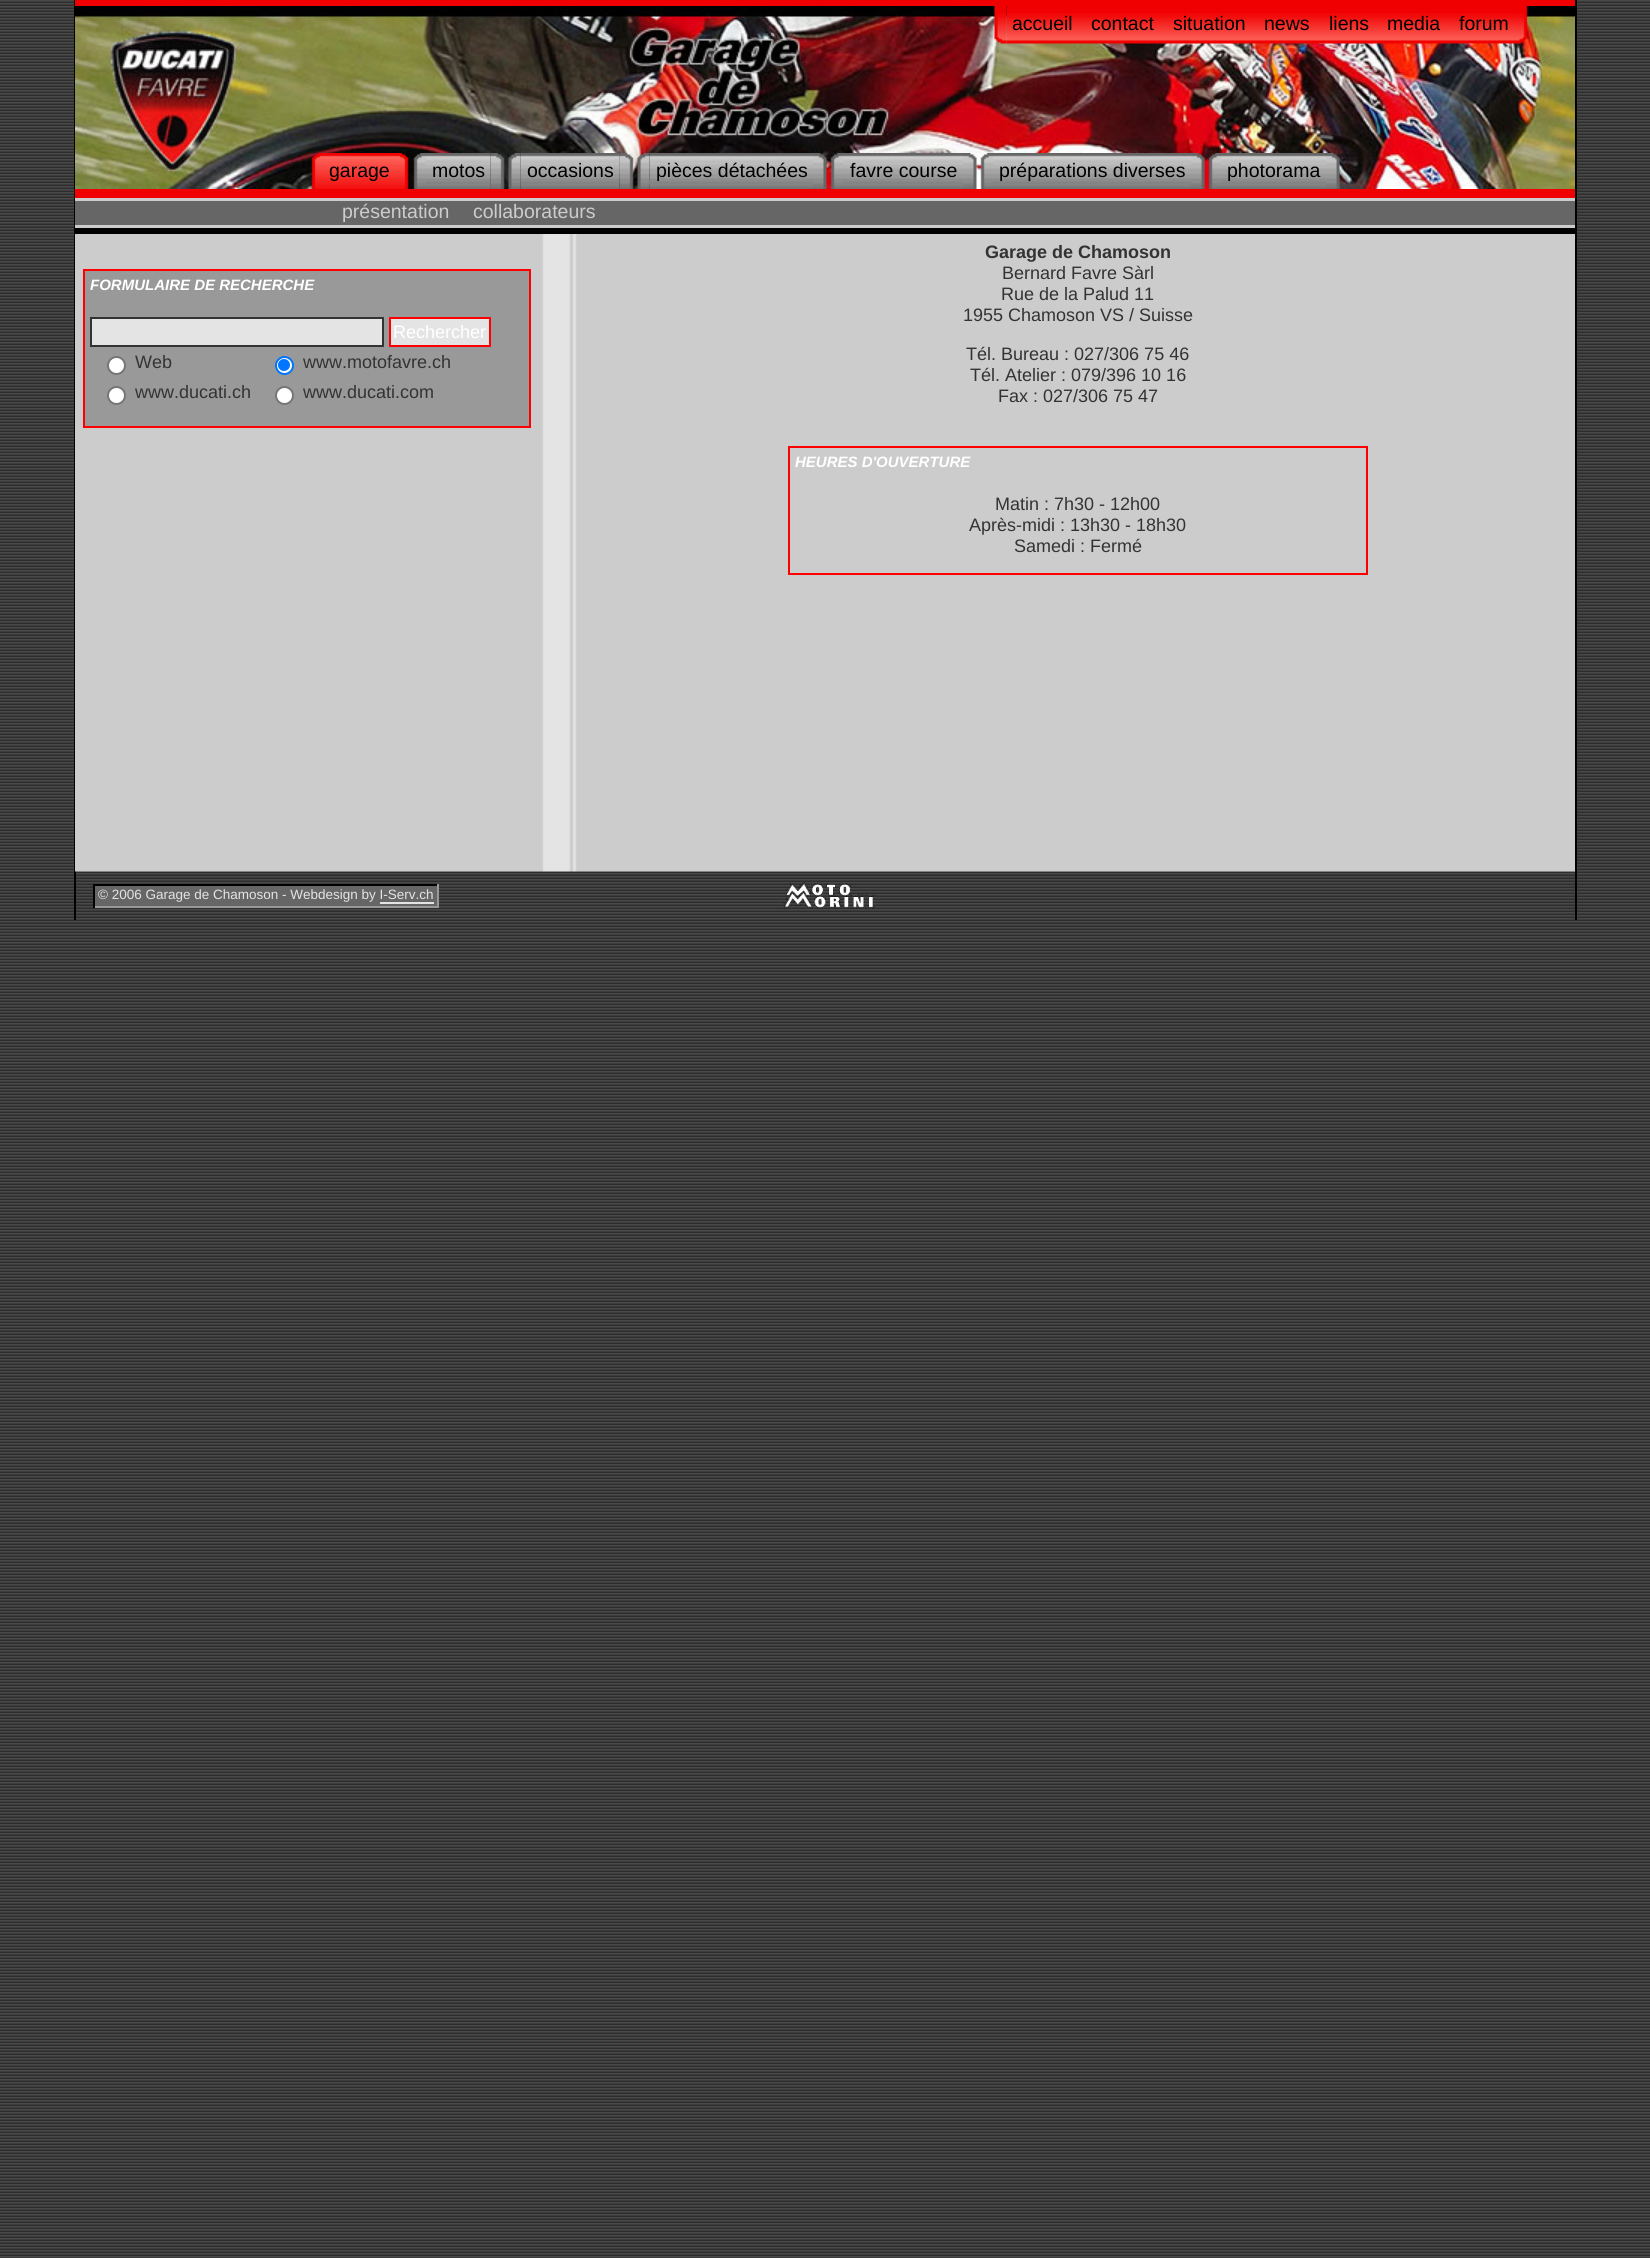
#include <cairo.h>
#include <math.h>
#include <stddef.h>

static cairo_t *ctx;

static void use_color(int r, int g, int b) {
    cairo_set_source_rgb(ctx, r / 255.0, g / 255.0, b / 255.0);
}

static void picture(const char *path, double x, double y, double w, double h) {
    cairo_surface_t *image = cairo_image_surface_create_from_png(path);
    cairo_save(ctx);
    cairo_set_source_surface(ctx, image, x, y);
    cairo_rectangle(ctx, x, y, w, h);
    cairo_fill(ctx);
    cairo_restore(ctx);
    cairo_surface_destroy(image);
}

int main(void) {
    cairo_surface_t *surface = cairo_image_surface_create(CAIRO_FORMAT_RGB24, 1650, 2258);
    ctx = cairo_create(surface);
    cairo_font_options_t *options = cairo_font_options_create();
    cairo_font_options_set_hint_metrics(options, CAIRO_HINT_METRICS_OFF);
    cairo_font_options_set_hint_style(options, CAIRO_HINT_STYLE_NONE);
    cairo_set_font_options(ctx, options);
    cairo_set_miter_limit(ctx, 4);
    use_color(255, 255, 255);
    cairo_paint(ctx);
    picture("img1.png", 0, 0, 1650, 2258);
    use_color(0, 0, 0);
    cairo_rectangle(ctx, 1575, 0, 2, 920);
    cairo_fill(ctx);
    cairo_rectangle(ctx, 74, 0, 2, 920);
    cairo_fill(ctx);
    use_color(240, 0, 0);
    cairo_rectangle(ctx, 75, 0, 1500, 6);
    cairo_fill(ctx);
    picture("img2.png", 75, 6, 1500, 183);
    picture("img4.png", 1006, 6, 509, 38);
    picture("img3.png", 994, 6, 13, 38);
    cairo_select_font_face(ctx, "Liberation Sans", CAIRO_FONT_SLANT_NORMAL, CAIRO_FONT_WEIGHT_NORMAL);
    cairo_set_font_size(ctx, 19.5);
    use_color(0, 0, 0);
    cairo_move_to(ctx, 1012, 30);
    cairo_show_text(ctx, "accueil");
    cairo_move_to(ctx, 1091, 30);
    cairo_show_text(ctx, "contact");
    cairo_move_to(ctx, 1173, 30);
    cairo_show_text(ctx, "situation");
    cairo_move_to(ctx, 1264, 30);
    cairo_show_text(ctx, "news");
    cairo_move_to(ctx, 1329, 30);
    cairo_show_text(ctx, "liens");
    cairo_move_to(ctx, 1387, 30);
    cairo_show_text(ctx, "media");
    cairo_move_to(ctx, 1459, 30);
    cairo_show_text(ctx, "forum");
    picture("img5.png", 1515, 6, 13, 38);
    picture("img6.png", 311, 153, 13, 36);
    picture("img7.png", 324, 153, 72, 36);
    cairo_move_to(ctx, 329, 177);
    cairo_show_text(ctx, "garage");
    picture("img8.png", 396, 153, 13, 36);
    picture("img9.png", 413, 153, 13, 36);
    picture("img10.png", 426, 153, 65, 36);
    cairo_move_to(ctx, 432, 177);
    cairo_show_text(ctx, "motos");
    picture("img11.png", 490, 153, 15, 36);
    picture("img13.png", 520, 153, 100, 36);
    picture("img12.png", 508, 153, 13, 36);
    cairo_move_to(ctx, 527, 177);
    cairo_show_text(ctx, "occasions");
    picture("img14.png", 619, 153, 15, 36);
    picture("img16.png", 649, 153, 164, 36);
    picture("img15.png", 637, 153, 13, 36);
    cairo_move_to(ctx, 656, 177);
    cairo_show_text(ctx, "pièces détachées");
    picture("img17.png", 813, 153, 14, 36);
    picture("img18.png", 830, 153, 13, 36);
    picture("img19.png", 843, 153, 120, 36);
    cairo_move_to(ctx, 850, 177);
    cairo_show_text(ctx, "favre course");
    picture("img20.png", 963, 153, 14, 36);
    picture("img21.png", 980, 153, 13, 36);
    picture("img22.png", 993, 153, 198, 36);
    cairo_move_to(ctx, 999, 177);
    cairo_show_text(ctx, "préparations diverses");
    picture("img23.png", 1191, 153, 14, 36);
    picture("img24.png", 1208, 153, 13, 36);
    picture("img25.png", 1221, 153, 105, 36);
    cairo_move_to(ctx, 1227, 177);
    cairo_show_text(ctx, "photorama");
    picture("img26.png", 1326, 153, 14, 36);
    use_color(240, 0, 0);
    cairo_rectangle(ctx, 75, 189, 1500, 9);
    cairo_fill(ctx);
    use_color(204, 204, 204);
    cairo_rectangle(ctx, 75, 198, 1500, 3);
    cairo_fill(ctx);
    use_color(102, 102, 102);
    cairo_rectangle(ctx, 75, 201, 1500, 24);
    cairo_fill(ctx);
    use_color(204, 204, 204);
    cairo_move_to(ctx, 342, 218);
    cairo_show_text(ctx, "présentation");
    cairo_move_to(ctx, 473, 218);
    cairo_show_text(ctx, "collaborateurs");
    cairo_rectangle(ctx, 75, 225, 1500, 3);
    cairo_fill(ctx);
    use_color(0, 0, 0);
    cairo_rectangle(ctx, 75, 228, 1500, 6);
    cairo_fill(ctx);
    picture("img27.png", 75, 234, 1500, 638);
    use_color(153, 153, 153);
    cairo_rectangle(ctx, 84, 270, 446, 157);
    cairo_fill_preserve(ctx);
    use_color(255, 0, 0);
    cairo_stroke(ctx);
    cairo_select_font_face(ctx, "Liberation Sans", CAIRO_FONT_SLANT_ITALIC, CAIRO_FONT_WEIGHT_BOLD);
    cairo_set_font_size(ctx, 15);
    use_color(255, 255, 255);
    cairo_move_to(ctx, 90, 290);
    cairo_show_text(ctx, "FORMULAIRE DE RECHERCHE");
    use_color(228, 228, 228);
    cairo_rectangle(ctx, 91, 318, 292, 28);
    cairo_fill_preserve(ctx);
    use_color(51, 51, 51);
    cairo_stroke(ctx);
    use_color(228, 228, 228);
    cairo_rectangle(ctx, 390, 318, 100, 28);
    cairo_fill_preserve(ctx);
    use_color(255, 0, 0);
    cairo_stroke(ctx);
    cairo_select_font_face(ctx, "Liberation Sans", CAIRO_FONT_SLANT_NORMAL, CAIRO_FONT_WEIGHT_NORMAL);
    cairo_set_font_size(ctx, 18);
    use_color(255, 255, 255);
    cairo_move_to(ctx, 393, 338);
    cairo_show_text(ctx, "Rechercher");
    cairo_new_path(ctx);
    cairo_arc(ctx, 116.5, 365.5, 8.5, 0, 2 * M_PI);
    cairo_fill_preserve(ctx);
    use_color(118, 118, 118);
    cairo_stroke(ctx);
    use_color(51, 51, 51);
    cairo_move_to(ctx, 135, 368);
    cairo_show_text(ctx, "Web");
    use_color(255, 255, 255);
    cairo_new_path(ctx);
    cairo_arc(ctx, 284.5, 365.5, 8.5, 0, 2 * M_PI);
    cairo_fill_preserve(ctx);
    use_color(0, 117, 255);
    cairo_stroke(ctx);
    cairo_arc(ctx, 284, 365, 6, 0, 2 * M_PI);
    cairo_fill(ctx);
    use_color(51, 51, 51);
    cairo_move_to(ctx, 303, 368);
    cairo_show_text(ctx, "www.motofavre.ch");
    use_color(255, 255, 255);
    cairo_new_path(ctx);
    cairo_arc(ctx, 116.5, 395.5, 8.5, 0, 2 * M_PI);
    cairo_fill_preserve(ctx);
    use_color(118, 118, 118);
    cairo_stroke(ctx);
    use_color(51, 51, 51);
    cairo_move_to(ctx, 135, 398);
    cairo_show_text(ctx, "www.ducati.ch");
    use_color(255, 255, 255);
    cairo_new_path(ctx);
    cairo_arc(ctx, 284.5, 395.5, 8.5, 0, 2 * M_PI);
    cairo_fill_preserve(ctx);
    use_color(118, 118, 118);
    cairo_stroke(ctx);
    use_color(51, 51, 51);
    cairo_move_to(ctx, 303, 398);
    cairo_show_text(ctx, "www.ducati.com");
    cairo_select_font_face(ctx, "Liberation Sans", CAIRO_FONT_SLANT_NORMAL, CAIRO_FONT_WEIGHT_BOLD);
    cairo_move_to(ctx, 985, 258);
    cairo_show_text(ctx, "Garage de Chamoson");
    cairo_select_font_face(ctx, "Liberation Sans", CAIRO_FONT_SLANT_NORMAL, CAIRO_FONT_WEIGHT_NORMAL);
    cairo_move_to(ctx, 1002, 279);
    cairo_show_text(ctx, "Bernard Favre Sàrl");
    cairo_move_to(ctx, 1001, 300);
    cairo_show_text(ctx, "Rue de la Palud 11");
    cairo_move_to(ctx, 963, 321);
    cairo_show_text(ctx, "1955 Chamoson VS / Suisse");
    cairo_move_to(ctx, 966, 360);
    cairo_show_text(ctx, "Tél. Bureau : 027/306 75 46");
    cairo_move_to(ctx, 970, 381);
    cairo_show_text(ctx, "Tél. Atelier : 079/396 10 16");
    cairo_move_to(ctx, 998, 402);
    cairo_show_text(ctx, "Fax : 027/306 75 47");
    cairo_rectangle(ctx, 789, 447, 578, 127);
    use_color(255, 0, 0);
    cairo_stroke(ctx);
    cairo_select_font_face(ctx, "Liberation Sans", CAIRO_FONT_SLANT_ITALIC, CAIRO_FONT_WEIGHT_BOLD);
    cairo_set_font_size(ctx, 15);
    use_color(255, 255, 255);
    cairo_move_to(ctx, 795, 467);
    cairo_show_text(ctx, "HEURES D'OUVERTURE");
    cairo_select_font_face(ctx, "Liberation Sans", CAIRO_FONT_SLANT_NORMAL, CAIRO_FONT_WEIGHT_NORMAL);
    cairo_set_font_size(ctx, 18);
    use_color(51, 51, 51);
    cairo_move_to(ctx, 995, 510);
    cairo_show_text(ctx, "Matin : 7h30 - 12h00");
    cairo_move_to(ctx, 969, 531);
    cairo_show_text(ctx, "Après-midi : 13h30 - 18h30");
    cairo_move_to(ctx, 1014, 552);
    cairo_show_text(ctx, "Samedi : Fermé");
    use_color(102, 102, 102);
    cairo_rectangle(ctx, 95, 886, 342, 20);
    cairo_fill(ctx);
    cairo_set_font_size(ctx, 13.5);
    use_color(228, 228, 228);
    cairo_move_to(ctx, 98, 899);
    cairo_show_text(ctx, "© 2006 Garage de Chamoson - Webdesign by I-Serv.ch");
    use_color(0, 0, 0);
    cairo_rectangle(ctx, 93, 884, 345, 2);
    cairo_fill(ctx);
    use_color(153, 153, 153);
    cairo_rectangle(ctx, 93, 906, 287, 2);
    cairo_fill(ctx);
    use_color(0, 0, 0);
    cairo_rectangle(ctx, 93, 884, 2, 24);
    cairo_fill(ctx);
    use_color(153, 153, 153);
    cairo_rectangle(ctx, 437, 884, 2, 24);
    cairo_fill(ctx);
    cairo_rectangle(ctx, 380, 906, 58, 2);
    cairo_fill(ctx);
    use_color(228, 228, 228);
    cairo_rectangle(ctx, 380, 902, 54, 2);
    cairo_fill(ctx);
    picture("img28.png", 783, 882, 93, 28);
    cairo_surface_write_to_png(surface, "result.png");
    cairo_font_options_destroy(options);
    cairo_destroy(ctx);
    cairo_surface_destroy(surface);
    return 0;
}
